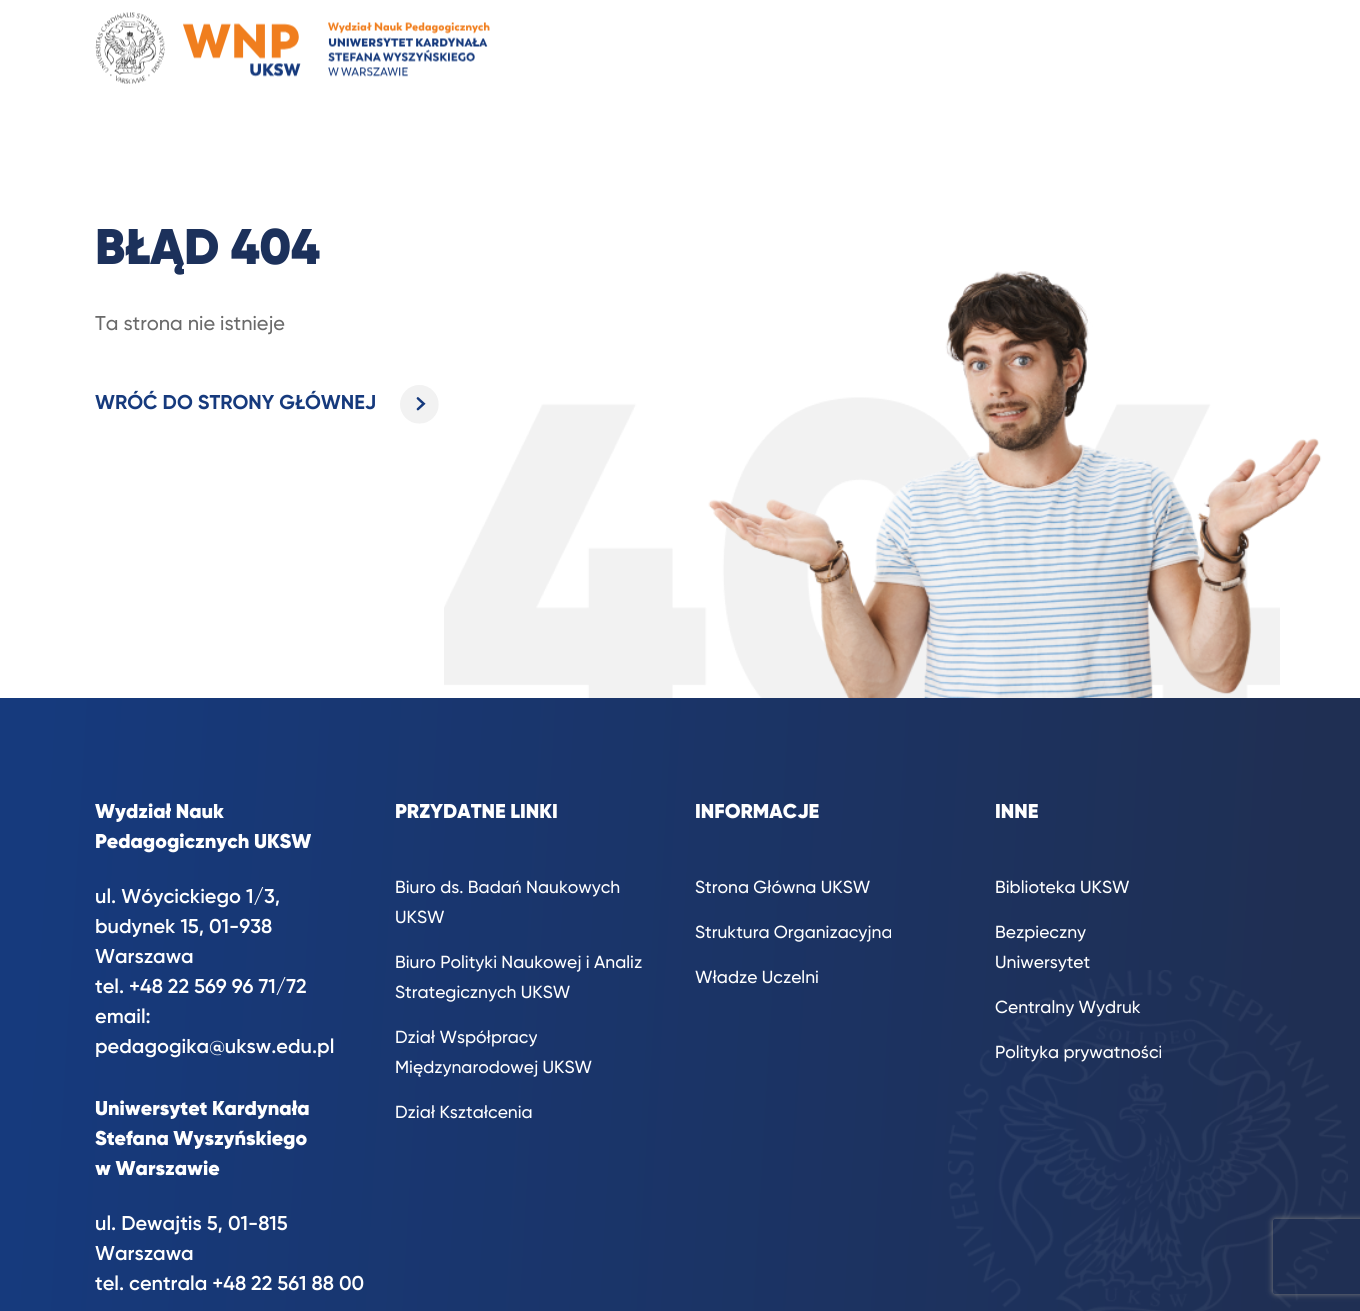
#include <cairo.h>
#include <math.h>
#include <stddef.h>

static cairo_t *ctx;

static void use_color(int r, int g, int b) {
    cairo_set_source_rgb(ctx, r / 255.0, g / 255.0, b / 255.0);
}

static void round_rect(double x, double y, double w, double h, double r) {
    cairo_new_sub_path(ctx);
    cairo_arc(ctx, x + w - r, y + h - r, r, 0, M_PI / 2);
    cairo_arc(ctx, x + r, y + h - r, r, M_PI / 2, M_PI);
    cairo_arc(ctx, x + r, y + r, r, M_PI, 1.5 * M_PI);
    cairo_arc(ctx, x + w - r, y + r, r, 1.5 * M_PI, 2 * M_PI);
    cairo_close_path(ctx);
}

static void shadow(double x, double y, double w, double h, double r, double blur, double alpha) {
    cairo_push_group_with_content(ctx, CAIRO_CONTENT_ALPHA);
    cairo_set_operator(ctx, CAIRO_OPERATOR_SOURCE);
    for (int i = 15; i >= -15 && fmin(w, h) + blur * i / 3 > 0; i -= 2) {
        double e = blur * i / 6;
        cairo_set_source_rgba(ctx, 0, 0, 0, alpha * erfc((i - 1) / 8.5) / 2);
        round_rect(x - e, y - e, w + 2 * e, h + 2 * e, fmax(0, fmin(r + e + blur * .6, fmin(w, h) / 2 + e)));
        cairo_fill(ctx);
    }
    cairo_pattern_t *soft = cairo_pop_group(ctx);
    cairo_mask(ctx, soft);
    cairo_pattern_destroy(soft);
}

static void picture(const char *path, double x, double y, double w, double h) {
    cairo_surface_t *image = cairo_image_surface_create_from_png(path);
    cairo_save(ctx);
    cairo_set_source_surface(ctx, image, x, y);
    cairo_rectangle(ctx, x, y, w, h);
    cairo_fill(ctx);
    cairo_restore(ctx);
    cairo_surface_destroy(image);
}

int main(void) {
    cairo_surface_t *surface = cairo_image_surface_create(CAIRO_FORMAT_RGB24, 1360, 1311);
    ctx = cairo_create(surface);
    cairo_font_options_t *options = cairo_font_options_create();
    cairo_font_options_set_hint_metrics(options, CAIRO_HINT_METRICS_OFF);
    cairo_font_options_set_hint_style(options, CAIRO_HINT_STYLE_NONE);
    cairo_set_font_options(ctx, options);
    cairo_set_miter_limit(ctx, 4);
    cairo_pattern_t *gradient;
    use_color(255, 255, 255);
    cairo_paint(ctx);
    picture("img1.png", 95, 12, 395, 72);
    picture("img2.png", 444, 397, 836, 301);
    cairo_select_font_face(ctx, "Gilroy Black", CAIRO_FONT_SLANT_NORMAL, CAIRO_FONT_WEIGHT_NORMAL);
    cairo_set_font_size(ctx, 50);
    use_color(28, 49, 91);
    cairo_move_to(ctx, 95, 264);
    cairo_show_text(ctx, "BŁĄD 404");
    cairo_select_font_face(ctx, "Gilroy Medium", CAIRO_FONT_SLANT_NORMAL, CAIRO_FONT_WEIGHT_NORMAL);
    cairo_set_font_size(ctx, 20);
    use_color(106, 106, 106);
    cairo_move_to(ctx, 95, 330);
    cairo_show_text(ctx, "Ta strona nie istnieje");
    cairo_select_font_face(ctx, "Gilroy", CAIRO_FONT_SLANT_NORMAL, CAIRO_FONT_WEIGHT_BOLD);
    use_color(22, 58, 125);
    cairo_move_to(ctx, 95, 409);
    cairo_show_text(ctx, "WRÓĆ DO STRONY GŁÓWNEJ");
    picture("img3.png", 400, 385, 39, 39);
    picture("img4.png", 708, 271, 614, 427);
    gradient = cairo_pattern_create_linear(-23, 1086, 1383, 1169);
    cairo_pattern_add_color_stop_rgba(gradient, 0.03, 0.086, 0.227, 0.49, 1);
    cairo_pattern_add_color_stop_rgba(gradient, 0.94, 0.122, 0.184, 0.325, 1);
    cairo_set_source(ctx, gradient);
    cairo_pattern_destroy(gradient);
    cairo_rectangle(ctx, 0, 698, 1360, 613);
    cairo_fill(ctx);
    cairo_select_font_face(ctx, "Gilroy Black", CAIRO_FONT_SLANT_NORMAL, CAIRO_FONT_WEIGHT_NORMAL);
    use_color(255, 255, 255);
    cairo_move_to(ctx, 95, 818);
    cairo_show_text(ctx, "Wydział Nauk");
    cairo_move_to(ctx, 95, 848);
    cairo_show_text(ctx, "Pedagogicznych UKSW");
    cairo_select_font_face(ctx, "Gilroy SemiBold", CAIRO_FONT_SLANT_NORMAL, CAIRO_FONT_WEIGHT_NORMAL);
    cairo_move_to(ctx, 95, 903);
    cairo_show_text(ctx, "ul. Wóycickiego 1/3,");
    cairo_move_to(ctx, 95, 933);
    cairo_show_text(ctx, "budynek 15, 01-938");
    cairo_move_to(ctx, 95, 963);
    cairo_show_text(ctx, "Warszawa");
    cairo_move_to(ctx, 95, 993);
    cairo_show_text(ctx, "tel. +48 22 569 96 71/72");
    cairo_move_to(ctx, 95, 1023);
    cairo_show_text(ctx, "email:");
    cairo_move_to(ctx, 95, 1053);
    cairo_show_text(ctx, "pedagogika@uksw.edu.pl");
    cairo_select_font_face(ctx, "Gilroy Black", CAIRO_FONT_SLANT_NORMAL, CAIRO_FONT_WEIGHT_NORMAL);
    cairo_move_to(ctx, 95, 1115);
    cairo_show_text(ctx, "Uniwersytet Kardynała");
    cairo_move_to(ctx, 95, 1145);
    cairo_show_text(ctx, "Stefana Wyszyńskiego");
    cairo_move_to(ctx, 95, 1175);
    cairo_show_text(ctx, "w Warszawie");
    cairo_select_font_face(ctx, "Gilroy SemiBold", CAIRO_FONT_SLANT_NORMAL, CAIRO_FONT_WEIGHT_NORMAL);
    cairo_move_to(ctx, 95, 1230);
    cairo_show_text(ctx, "ul. Dewajtis 5, 01-815");
    cairo_move_to(ctx, 95, 1260);
    cairo_show_text(ctx, "Warszawa");
    cairo_move_to(ctx, 95, 1290);
    cairo_show_text(ctx, "tel. centrala +48 22 561 88 00");
    cairo_select_font_face(ctx, "Gilroy Black", CAIRO_FONT_SLANT_NORMAL, CAIRO_FONT_WEIGHT_NORMAL);
    cairo_move_to(ctx, 395, 818);
    cairo_show_text(ctx, "PRZYDATNE LINKI");
    cairo_select_font_face(ctx, "Gilroy Medium", CAIRO_FONT_SLANT_NORMAL, CAIRO_FONT_WEIGHT_NORMAL);
    cairo_set_font_size(ctx, 17.5);
    cairo_move_to(ctx, 395, 893);
    cairo_show_text(ctx, "Biuro ds. Badań Naukowych");
    cairo_move_to(ctx, 395, 923);
    cairo_show_text(ctx, "UKSW");
    cairo_move_to(ctx, 395, 968);
    cairo_show_text(ctx, "Biuro Polityki Naukowej i Analiz");
    cairo_move_to(ctx, 395, 998);
    cairo_show_text(ctx, "Strategicznych UKSW");
    cairo_move_to(ctx, 395, 1043);
    cairo_show_text(ctx, "Dział Współpracy");
    cairo_move_to(ctx, 395, 1073);
    cairo_show_text(ctx, "Międzynarodowej UKSW");
    cairo_move_to(ctx, 395, 1118);
    cairo_show_text(ctx, "Dział Kształcenia");
    cairo_select_font_face(ctx, "Gilroy Black", CAIRO_FONT_SLANT_NORMAL, CAIRO_FONT_WEIGHT_NORMAL);
    cairo_set_font_size(ctx, 20);
    cairo_move_to(ctx, 695, 818);
    cairo_show_text(ctx, "INFORMACJE");
    cairo_select_font_face(ctx, "Gilroy Medium", CAIRO_FONT_SLANT_NORMAL, CAIRO_FONT_WEIGHT_NORMAL);
    cairo_set_font_size(ctx, 17.5);
    cairo_move_to(ctx, 695, 893);
    cairo_show_text(ctx, "Strona Główna UKSW");
    cairo_move_to(ctx, 695, 938);
    cairo_show_text(ctx, "Struktura Organizacyjna");
    cairo_move_to(ctx, 695, 983);
    cairo_show_text(ctx, "Władze Uczelni");
    cairo_select_font_face(ctx, "Gilroy Black", CAIRO_FONT_SLANT_NORMAL, CAIRO_FONT_WEIGHT_NORMAL);
    cairo_set_font_size(ctx, 20);
    cairo_move_to(ctx, 995, 818);
    cairo_show_text(ctx, "INNE");
    cairo_select_font_face(ctx, "Gilroy Medium", CAIRO_FONT_SLANT_NORMAL, CAIRO_FONT_WEIGHT_NORMAL);
    cairo_set_font_size(ctx, 17.5);
    cairo_move_to(ctx, 995, 893);
    cairo_show_text(ctx, "Biblioteka UKSW");
    cairo_move_to(ctx, 995, 938);
    cairo_show_text(ctx, "Bezpieczny");
    cairo_move_to(ctx, 995, 968);
    cairo_show_text(ctx, "Uniwersytet");
    cairo_move_to(ctx, 995, 1013);
    cairo_show_text(ctx, "Centralny Wydruk");
    cairo_move_to(ctx, 995, 1058);
    cairo_show_text(ctx, "Polityka prywatności");
    picture("img5.png", 948, 970, 400, 341);
    cairo_save(ctx);
    cairo_set_fill_rule(ctx, CAIRO_FILL_RULE_EVEN_ODD);
    cairo_new_path(ctx);
    cairo_move_to(ctx, 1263, 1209);
    cairo_line_to(ctx, 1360, 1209);
    cairo_line_to(ctx, 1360, 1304);
    cairo_line_to(ctx, 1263, 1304);
    cairo_close_path(ctx);
    cairo_move_to(ctx, 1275.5, 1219);
    cairo_line_to(ctx, 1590.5, 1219);
    cairo_curve_to(ctx, 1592, 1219, 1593, 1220, 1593, 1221.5);
    cairo_line_to(ctx, 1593, 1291.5);
    cairo_curve_to(ctx, 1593, 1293, 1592, 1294, 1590.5, 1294);
    cairo_line_to(ctx, 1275.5, 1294);
    cairo_curve_to(ctx, 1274, 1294, 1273, 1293, 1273, 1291.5);
    cairo_line_to(ctx, 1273, 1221.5);
    cairo_curve_to(ctx, 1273, 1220, 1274, 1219, 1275.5, 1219);
    cairo_close_path(ctx);
    cairo_clip(ctx);
    use_color(128, 128, 128);
    shadow(1273, 1219, 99, 75, 2.5, 3, 1);
    cairo_restore(ctx);
    cairo_surface_write_to_png(surface, "result.png");
    cairo_font_options_destroy(options);
    cairo_destroy(ctx);
    cairo_surface_destroy(surface);
    return 0;
}
